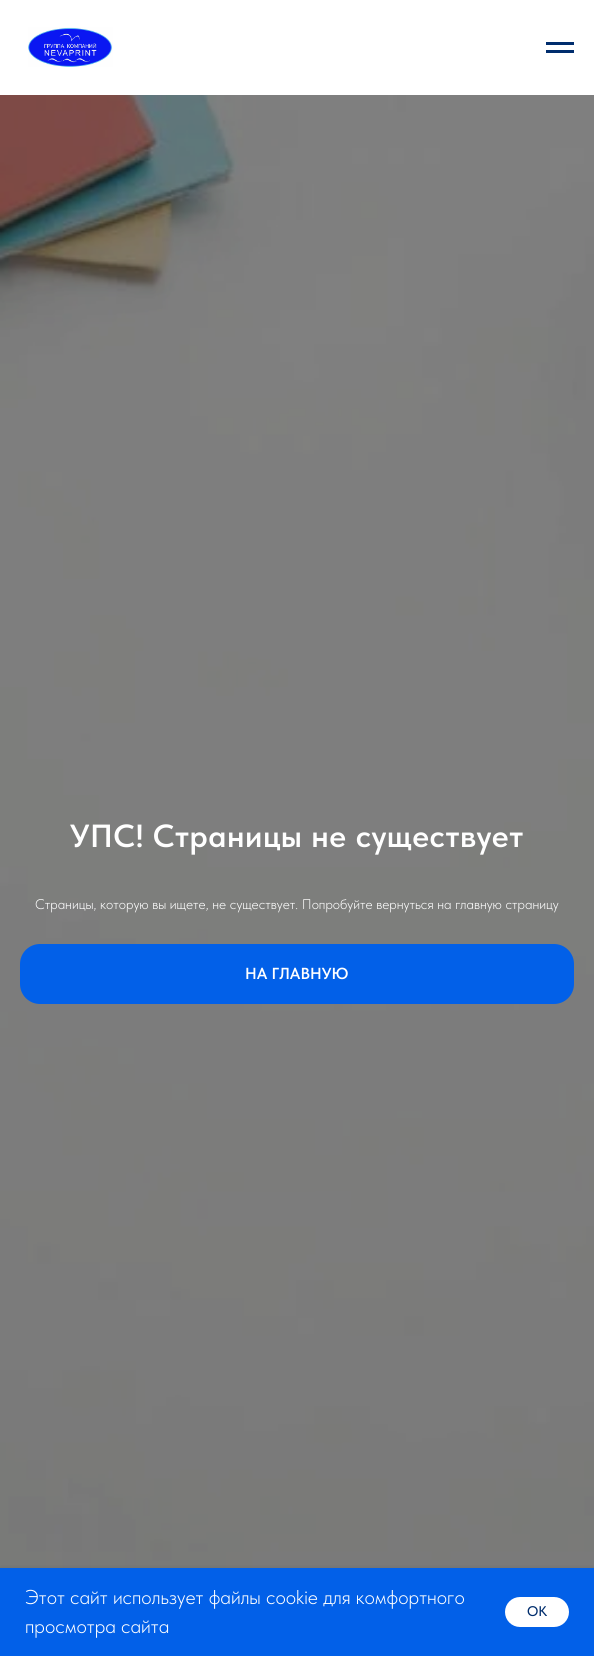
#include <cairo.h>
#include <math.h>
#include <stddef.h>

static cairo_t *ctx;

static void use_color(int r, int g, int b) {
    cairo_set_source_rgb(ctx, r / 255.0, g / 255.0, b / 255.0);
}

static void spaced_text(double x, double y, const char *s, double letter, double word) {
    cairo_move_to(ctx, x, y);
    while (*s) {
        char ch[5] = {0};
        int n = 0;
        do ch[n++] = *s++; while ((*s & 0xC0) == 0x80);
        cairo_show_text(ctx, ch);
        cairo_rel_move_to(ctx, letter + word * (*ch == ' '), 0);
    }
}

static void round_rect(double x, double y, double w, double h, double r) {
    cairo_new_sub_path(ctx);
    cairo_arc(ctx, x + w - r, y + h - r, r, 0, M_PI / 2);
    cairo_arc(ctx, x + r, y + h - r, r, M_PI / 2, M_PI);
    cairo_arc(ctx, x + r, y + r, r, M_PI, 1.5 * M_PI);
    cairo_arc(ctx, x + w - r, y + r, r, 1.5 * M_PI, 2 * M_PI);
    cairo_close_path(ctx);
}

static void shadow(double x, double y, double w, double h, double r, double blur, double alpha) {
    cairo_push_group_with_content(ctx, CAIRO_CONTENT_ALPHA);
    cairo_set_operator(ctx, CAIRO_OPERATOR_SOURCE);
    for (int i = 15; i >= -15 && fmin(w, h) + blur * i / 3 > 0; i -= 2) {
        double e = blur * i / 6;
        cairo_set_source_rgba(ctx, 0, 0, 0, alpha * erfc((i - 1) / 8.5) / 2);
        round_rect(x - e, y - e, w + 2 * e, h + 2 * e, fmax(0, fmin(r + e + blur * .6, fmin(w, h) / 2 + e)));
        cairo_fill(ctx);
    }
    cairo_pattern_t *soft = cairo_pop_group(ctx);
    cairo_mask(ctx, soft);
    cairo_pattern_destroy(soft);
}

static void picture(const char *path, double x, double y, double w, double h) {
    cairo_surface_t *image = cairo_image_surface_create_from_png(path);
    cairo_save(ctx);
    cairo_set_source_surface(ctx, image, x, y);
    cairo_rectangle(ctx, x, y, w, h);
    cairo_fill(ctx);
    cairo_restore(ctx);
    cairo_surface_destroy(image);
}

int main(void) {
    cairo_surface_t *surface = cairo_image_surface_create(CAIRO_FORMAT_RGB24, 594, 1656);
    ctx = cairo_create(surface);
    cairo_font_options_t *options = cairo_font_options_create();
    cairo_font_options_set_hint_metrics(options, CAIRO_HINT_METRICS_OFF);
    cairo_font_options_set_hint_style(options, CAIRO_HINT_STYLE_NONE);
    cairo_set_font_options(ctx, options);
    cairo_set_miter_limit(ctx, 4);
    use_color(255, 255, 255);
    cairo_paint(ctx);
    picture("img1.png", 28, 27, 85, 40);
    use_color(0, 45, 109);
    cairo_rectangle(ctx, 546, 42, 28, 3);
    cairo_fill(ctx);
    cairo_rectangle(ctx, 546, 50, 28, 3);
    cairo_fill(ctx);
    picture("img2.png", 0, 95, 594, 1473);
    cairo_select_font_face(ctx, "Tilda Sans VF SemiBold", CAIRO_FONT_SLANT_NORMAL, CAIRO_FONT_WEIGHT_NORMAL);
    cairo_set_font_size(ctx, 32);
    use_color(255, 255, 255);
    spaced_text(70, 847, "УПС! Страницы не существует", 0.5, 0);
    cairo_select_font_face(ctx, "Tilda Sans VF Light", CAIRO_FONT_SLANT_NORMAL, CAIRO_FONT_WEIGHT_NORMAL);
    cairo_set_font_size(ctx, 14);
    cairo_move_to(ctx, 35, 909);
    cairo_show_text(ctx, "Страницы, которую вы ищете, не существует. Попробуйте вернуться на главную страницу");
    use_color(2, 96, 232);
    round_rect(21, 945, 552, 58, 19);
    cairo_fill_preserve(ctx);
    cairo_stroke(ctx);
    cairo_select_font_face(ctx, "Tilda Sans VF SemiBold", CAIRO_FONT_SLANT_NORMAL, CAIRO_FONT_WEIGHT_NORMAL);
    cairo_set_font_size(ctx, 16);
    use_color(255, 255, 255);
    cairo_move_to(ctx, 245, 979);
    cairo_show_text(ctx, "НА ГЛАВНУЮ");
    use_color(0, 0, 0);
    shadow(0, 1568, 594, 88, 0, 2.5, 0.1);
    use_color(2, 96, 232);
    cairo_rectangle(ctx, 0, 1568, 594, 88);
    cairo_fill(ctx);
    cairo_select_font_face(ctx, "Tilda Sans VF Light", CAIRO_FONT_SLANT_NORMAL, CAIRO_FONT_WEIGHT_NORMAL);
    cairo_set_font_size(ctx, 20);
    use_color(255, 255, 255);
    cairo_move_to(ctx, 25, 1604);
    cairo_show_text(ctx, "Этот сайт использует файлы cookie для комфортного");
    cairo_move_to(ctx, 25, 1633);
    cairo_show_text(ctx, "просмотра сайта");
    round_rect(506, 1598, 62, 28, 14);
    cairo_fill_preserve(ctx);
    cairo_stroke(ctx);
    cairo_select_font_face(ctx, "Tilda Sans VF Medium", CAIRO_FONT_SLANT_NORMAL, CAIRO_FONT_WEIGHT_NORMAL);
    cairo_set_font_size(ctx, 14);
    use_color(0, 45, 109);
    cairo_move_to(ctx, 527, 1616);
    cairo_show_text(ctx, "OK");
    cairo_surface_write_to_png(surface, "result.png");
    cairo_font_options_destroy(options);
    cairo_destroy(ctx);
    cairo_surface_destroy(surface);
    return 0;
}
